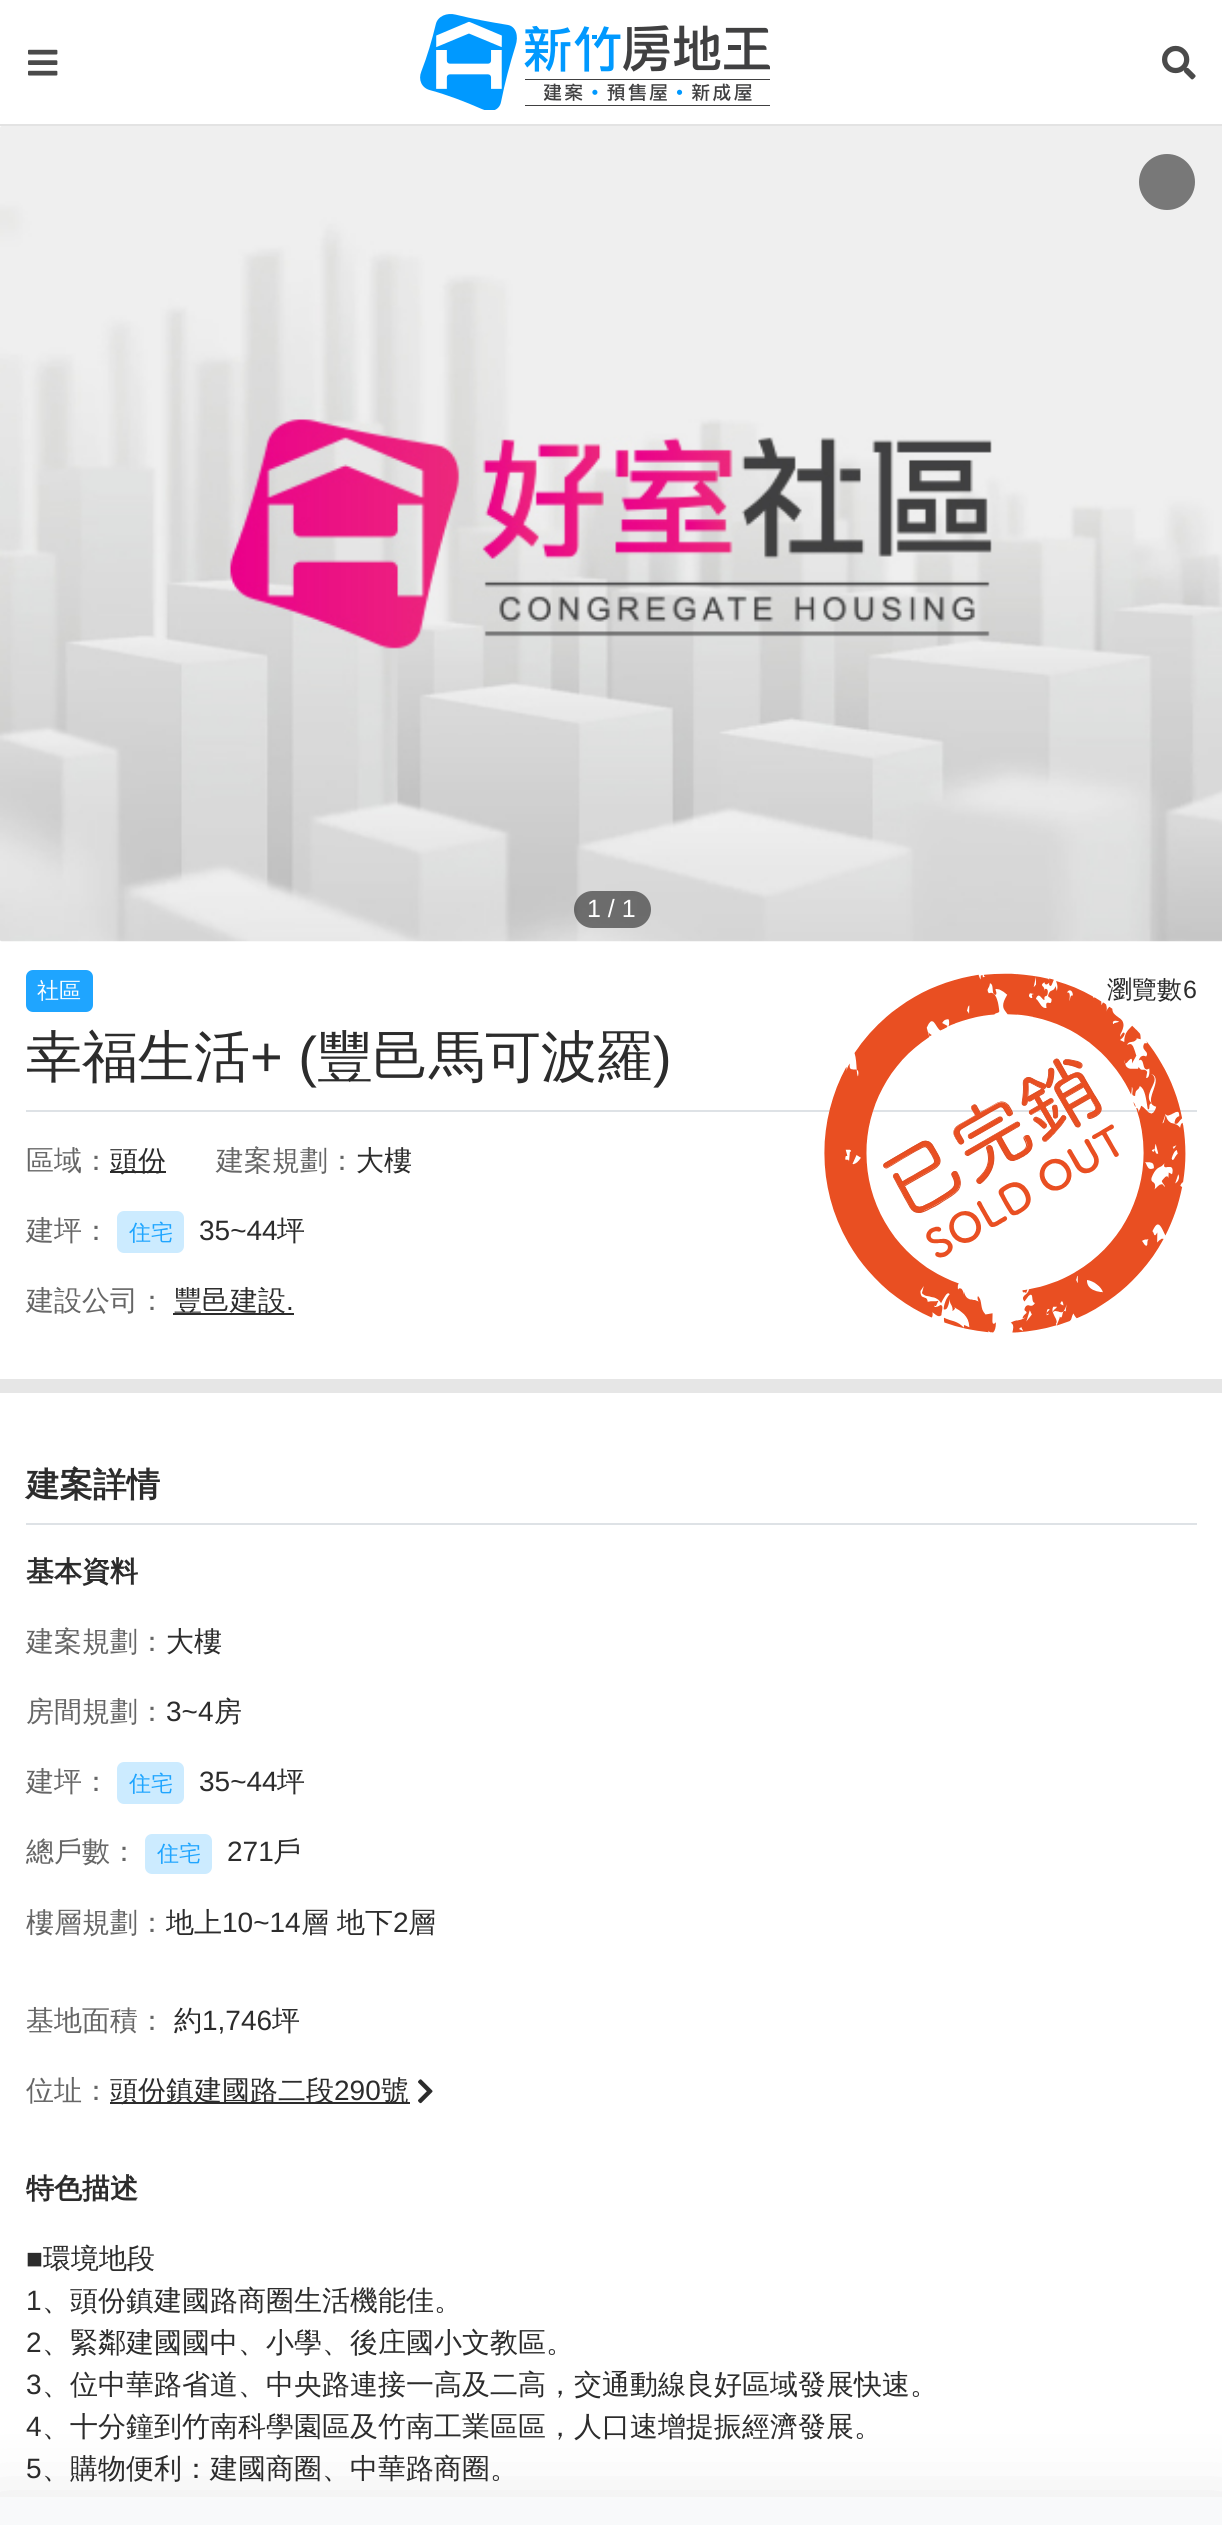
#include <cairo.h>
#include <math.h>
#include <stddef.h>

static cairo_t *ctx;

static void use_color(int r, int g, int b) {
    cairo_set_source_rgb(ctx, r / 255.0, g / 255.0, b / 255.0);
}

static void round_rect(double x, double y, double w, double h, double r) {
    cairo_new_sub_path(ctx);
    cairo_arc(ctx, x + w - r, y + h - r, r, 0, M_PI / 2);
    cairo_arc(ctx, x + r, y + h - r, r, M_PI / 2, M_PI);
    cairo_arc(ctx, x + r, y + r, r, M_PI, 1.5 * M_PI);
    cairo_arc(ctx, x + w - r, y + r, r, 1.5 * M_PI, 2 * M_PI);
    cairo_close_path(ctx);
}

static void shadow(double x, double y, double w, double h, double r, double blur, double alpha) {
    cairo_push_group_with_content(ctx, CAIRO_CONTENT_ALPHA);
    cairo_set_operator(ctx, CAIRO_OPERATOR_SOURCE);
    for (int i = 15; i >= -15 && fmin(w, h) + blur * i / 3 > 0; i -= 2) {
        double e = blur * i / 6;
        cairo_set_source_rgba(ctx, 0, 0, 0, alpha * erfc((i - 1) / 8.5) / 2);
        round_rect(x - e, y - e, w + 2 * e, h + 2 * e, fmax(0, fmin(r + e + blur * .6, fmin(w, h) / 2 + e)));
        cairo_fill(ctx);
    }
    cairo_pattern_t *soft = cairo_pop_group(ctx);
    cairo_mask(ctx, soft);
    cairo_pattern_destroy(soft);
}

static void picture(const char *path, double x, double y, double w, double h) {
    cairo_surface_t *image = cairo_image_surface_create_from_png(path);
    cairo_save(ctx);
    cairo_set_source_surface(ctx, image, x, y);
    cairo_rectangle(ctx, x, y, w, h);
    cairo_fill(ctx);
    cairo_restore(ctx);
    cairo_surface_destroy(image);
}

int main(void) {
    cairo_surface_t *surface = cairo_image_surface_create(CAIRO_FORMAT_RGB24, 1222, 2525);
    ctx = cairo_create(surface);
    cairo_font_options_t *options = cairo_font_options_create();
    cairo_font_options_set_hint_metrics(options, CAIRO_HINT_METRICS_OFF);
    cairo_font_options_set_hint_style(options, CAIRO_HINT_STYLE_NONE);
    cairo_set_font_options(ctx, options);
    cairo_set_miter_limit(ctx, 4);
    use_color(255, 255, 255);
    cairo_paint(ctx);
    picture("img1.png", 28, 49, 30, 27);
    picture("img2.png", 420, 14, 350, 96);
    picture("img3.png", 1162, 45, 34, 35);
    use_color(227, 227, 227);
    cairo_rectangle(ctx, 0, 124, 1222, 2);
    cairo_fill(ctx);
    picture("img4.png", 0, 126, 1222, 816);
    use_color(120, 120, 120);
    cairo_arc(ctx, 1167, 182, 28, 0, 2 * M_PI);
    cairo_fill(ctx);
    cairo_set_source_rgba(ctx, 0, 0, 0, 0.5);
    round_rect(574, 891, 77, 37, 18.5);
    cairo_fill(ctx);
    cairo_select_font_face(ctx, "Liberation Sans", CAIRO_FONT_SLANT_NORMAL, CAIRO_FONT_WEIGHT_NORMAL);
    cairo_set_font_size(ctx, 25);
    use_color(255, 255, 255);
    cairo_move_to(ctx, 587, 917);
    cairo_show_text(ctx, "1 / 1");
    use_color(222, 226, 230);
    cairo_rectangle(ctx, 26, 1110, 1171, 2);
    cairo_fill(ctx);
    cairo_select_font_face(ctx, "WenQuanYi Zen Hei Medium", CAIRO_FONT_SLANT_NORMAL, CAIRO_FONT_WEIGHT_NORMAL);
    use_color(44, 44, 44);
    cairo_move_to(ctx, 1107, 998);
    cairo_show_text(ctx, "瀏覽數");
    cairo_select_font_face(ctx, "Liberation Sans", CAIRO_FONT_SLANT_NORMAL, CAIRO_FONT_WEIGHT_NORMAL);
    cairo_move_to(ctx, 1183, 998);
    cairo_show_text(ctx, "6");
    picture("img5.png", 824, 973, 362, 360);
    use_color(31, 165, 255);
    round_rect(26, 970, 67, 42, 7);
    cairo_fill(ctx);
    cairo_select_font_face(ctx, "WenQuanYi Zen Hei Medium", CAIRO_FONT_SLANT_NORMAL, CAIRO_FONT_WEIGHT_NORMAL);
    cairo_set_font_size(ctx, 22);
    use_color(255, 255, 255);
    cairo_move_to(ctx, 37, 998);
    cairo_show_text(ctx, "社區");
    cairo_set_font_size(ctx, 56);
    use_color(44, 44, 44);
    cairo_move_to(ctx, 26, 1076);
    cairo_show_text(ctx, "幸福生活");
    cairo_select_font_face(ctx, "Liberation Sans", CAIRO_FONT_SLANT_NORMAL, CAIRO_FONT_WEIGHT_NORMAL);
    cairo_move_to(ctx, 250, 1076);
    cairo_show_text(ctx, "+ (");
    cairo_select_font_face(ctx, "WenQuanYi Zen Hei Medium", CAIRO_FONT_SLANT_NORMAL, CAIRO_FONT_WEIGHT_NORMAL);
    cairo_move_to(ctx, 317, 1076);
    cairo_show_text(ctx, "豐邑馬可波羅");
    cairo_select_font_face(ctx, "Liberation Sans", CAIRO_FONT_SLANT_NORMAL, CAIRO_FONT_WEIGHT_NORMAL);
    cairo_move_to(ctx, 653, 1076);
    cairo_show_text(ctx, ")");
    cairo_select_font_face(ctx, "WenQuanYi Zen Hei Medium", CAIRO_FONT_SLANT_NORMAL, CAIRO_FONT_WEIGHT_NORMAL);
    cairo_set_font_size(ctx, 28);
    use_color(102, 102, 102);
    cairo_move_to(ctx, 26, 1170);
    cairo_show_text(ctx, "區域：");
    use_color(44, 44, 44);
    cairo_rectangle(ctx, 110, 1171, 56, 2);
    cairo_fill(ctx);
    cairo_move_to(ctx, 110, 1170);
    cairo_show_text(ctx, "頭份");
    use_color(102, 102, 102);
    cairo_move_to(ctx, 216, 1170);
    cairo_show_text(ctx, "建案規劃：");
    use_color(44, 44, 44);
    cairo_move_to(ctx, 356, 1170);
    cairo_show_text(ctx, "大樓");
    use_color(102, 102, 102);
    cairo_move_to(ctx, 26, 1240);
    cairo_show_text(ctx, "建坪：");
    use_color(204, 235, 255);
    round_rect(117, 1211, 67, 42, 7);
    cairo_fill(ctx);
    cairo_set_font_size(ctx, 22);
    use_color(31, 165, 255);
    cairo_move_to(ctx, 129, 1240);
    cairo_show_text(ctx, "住宅");
    cairo_select_font_face(ctx, "Liberation Sans", CAIRO_FONT_SLANT_NORMAL, CAIRO_FONT_WEIGHT_NORMAL);
    cairo_set_font_size(ctx, 28);
    use_color(44, 44, 44);
    cairo_move_to(ctx, 199, 1240);
    cairo_show_text(ctx, "35~44");
    cairo_select_font_face(ctx, "WenQuanYi Zen Hei Medium", CAIRO_FONT_SLANT_NORMAL, CAIRO_FONT_WEIGHT_NORMAL);
    cairo_move_to(ctx, 277, 1240);
    cairo_show_text(ctx, "坪");
    use_color(102, 102, 102);
    cairo_move_to(ctx, 26, 1310);
    cairo_show_text(ctx, "建設公司：");
    use_color(44, 44, 44);
    cairo_rectangle(ctx, 173, 1313, 121, 2);
    cairo_fill(ctx);
    cairo_move_to(ctx, 174, 1310);
    cairo_show_text(ctx, "豐邑建設");
    cairo_select_font_face(ctx, "Liberation Sans", CAIRO_FONT_SLANT_NORMAL, CAIRO_FONT_WEIGHT_NORMAL);
    cairo_move_to(ctx, 286, 1310);
    cairo_show_text(ctx, ".");
    use_color(230, 230, 230);
    cairo_rectangle(ctx, 0, 1379, 1222, 14);
    cairo_fill(ctx);
    use_color(222, 226, 230);
    cairo_rectangle(ctx, 26, 1523, 1171, 2);
    cairo_fill(ctx);
    cairo_select_font_face(ctx, "WenQuanYi Zen Hei", CAIRO_FONT_SLANT_NORMAL, CAIRO_FONT_WEIGHT_BOLD);
    cairo_set_font_size(ctx, 33.5);
    use_color(44, 44, 44);
    cairo_move_to(ctx, 26, 1496);
    cairo_show_text(ctx, "建案詳情");
    cairo_set_font_size(ctx, 28);
    cairo_move_to(ctx, 26, 1581);
    cairo_show_text(ctx, "基本資料");
    cairo_select_font_face(ctx, "WenQuanYi Zen Hei Medium", CAIRO_FONT_SLANT_NORMAL, CAIRO_FONT_WEIGHT_NORMAL);
    use_color(102, 102, 102);
    cairo_move_to(ctx, 26, 1651);
    cairo_show_text(ctx, "建案規劃：");
    use_color(44, 44, 44);
    cairo_move_to(ctx, 166, 1651);
    cairo_show_text(ctx, "大樓");
    use_color(102, 102, 102);
    cairo_move_to(ctx, 26, 1721);
    cairo_show_text(ctx, "房間規劃：");
    cairo_select_font_face(ctx, "Liberation Sans", CAIRO_FONT_SLANT_NORMAL, CAIRO_FONT_WEIGHT_NORMAL);
    use_color(44, 44, 44);
    cairo_move_to(ctx, 166, 1721);
    cairo_show_text(ctx, "3~4");
    cairo_select_font_face(ctx, "WenQuanYi Zen Hei Medium", CAIRO_FONT_SLANT_NORMAL, CAIRO_FONT_WEIGHT_NORMAL);
    cairo_move_to(ctx, 214, 1721);
    cairo_show_text(ctx, "房");
    use_color(102, 102, 102);
    cairo_move_to(ctx, 26, 1791);
    cairo_show_text(ctx, "建坪：");
    use_color(204, 235, 255);
    round_rect(117, 1762, 67, 42, 7);
    cairo_fill(ctx);
    cairo_set_font_size(ctx, 22);
    use_color(31, 165, 255);
    cairo_move_to(ctx, 129, 1791);
    cairo_show_text(ctx, "住宅");
    cairo_select_font_face(ctx, "Liberation Sans", CAIRO_FONT_SLANT_NORMAL, CAIRO_FONT_WEIGHT_NORMAL);
    cairo_set_font_size(ctx, 28);
    use_color(44, 44, 44);
    cairo_move_to(ctx, 199, 1791);
    cairo_show_text(ctx, "35~44");
    cairo_select_font_face(ctx, "WenQuanYi Zen Hei Medium", CAIRO_FONT_SLANT_NORMAL, CAIRO_FONT_WEIGHT_NORMAL);
    cairo_move_to(ctx, 277, 1791);
    cairo_show_text(ctx, "坪");
    use_color(102, 102, 102);
    cairo_move_to(ctx, 26, 1861);
    cairo_show_text(ctx, "總戶數：");
    use_color(204, 235, 255);
    round_rect(145, 1834, 67, 40, 7);
    cairo_fill(ctx);
    cairo_set_font_size(ctx, 22);
    use_color(31, 165, 255);
    cairo_move_to(ctx, 157, 1861);
    cairo_show_text(ctx, "住宅");
    cairo_select_font_face(ctx, "Liberation Sans", CAIRO_FONT_SLANT_NORMAL, CAIRO_FONT_WEIGHT_NORMAL);
    cairo_set_font_size(ctx, 28);
    use_color(44, 44, 44);
    cairo_move_to(ctx, 227, 1861);
    cairo_show_text(ctx, "271");
    cairo_select_font_face(ctx, "WenQuanYi Zen Hei Medium", CAIRO_FONT_SLANT_NORMAL, CAIRO_FONT_WEIGHT_NORMAL);
    cairo_move_to(ctx, 273, 1861);
    cairo_show_text(ctx, "戶");
    use_color(102, 102, 102);
    cairo_move_to(ctx, 26, 1932);
    cairo_show_text(ctx, "樓層規劃：");
    use_color(44, 44, 44);
    cairo_move_to(ctx, 166, 1932);
    cairo_show_text(ctx, "地上");
    cairo_select_font_face(ctx, "Liberation Sans", CAIRO_FONT_SLANT_NORMAL, CAIRO_FONT_WEIGHT_NORMAL);
    cairo_move_to(ctx, 222, 1932);
    cairo_show_text(ctx, "10~14");
    cairo_select_font_face(ctx, "WenQuanYi Zen Hei Medium", CAIRO_FONT_SLANT_NORMAL, CAIRO_FONT_WEIGHT_NORMAL);
    cairo_move_to(ctx, 301, 1932);
    cairo_show_text(ctx, "層");
    cairo_move_to(ctx, 337, 1932);
    cairo_show_text(ctx, "地下");
    cairo_select_font_face(ctx, "Liberation Sans", CAIRO_FONT_SLANT_NORMAL, CAIRO_FONT_WEIGHT_NORMAL);
    cairo_move_to(ctx, 393, 1932);
    cairo_show_text(ctx, "2");
    cairo_select_font_face(ctx, "WenQuanYi Zen Hei Medium", CAIRO_FONT_SLANT_NORMAL, CAIRO_FONT_WEIGHT_NORMAL);
    cairo_move_to(ctx, 408, 1932);
    cairo_show_text(ctx, "層");
    use_color(102, 102, 102);
    cairo_move_to(ctx, 26, 2030);
    cairo_show_text(ctx, "基地面積：");
    use_color(44, 44, 44);
    cairo_move_to(ctx, 174, 2030);
    cairo_show_text(ctx, "約");
    cairo_select_font_face(ctx, "Liberation Sans", CAIRO_FONT_SLANT_NORMAL, CAIRO_FONT_WEIGHT_NORMAL);
    cairo_move_to(ctx, 202, 2030);
    cairo_show_text(ctx, "1,746");
    cairo_select_font_face(ctx, "WenQuanYi Zen Hei Medium", CAIRO_FONT_SLANT_NORMAL, CAIRO_FONT_WEIGHT_NORMAL);
    cairo_move_to(ctx, 272, 2030);
    cairo_show_text(ctx, "坪");
    use_color(102, 102, 102);
    cairo_move_to(ctx, 26, 2100);
    cairo_show_text(ctx, "位址：");
    use_color(44, 44, 44);
    cairo_rectangle(ctx, 110, 2102, 300, 2);
    cairo_fill(ctx);
    cairo_move_to(ctx, 110, 2100);
    cairo_show_text(ctx, "頭份鎮建國路二段");
    cairo_select_font_face(ctx, "Liberation Sans", CAIRO_FONT_SLANT_NORMAL, CAIRO_FONT_WEIGHT_NORMAL);
    cairo_move_to(ctx, 334, 2100);
    cairo_show_text(ctx, "290");
    cairo_select_font_face(ctx, "WenQuanYi Zen Hei Medium", CAIRO_FONT_SLANT_NORMAL, CAIRO_FONT_WEIGHT_NORMAL);
    cairo_move_to(ctx, 381, 2100);
    cairo_show_text(ctx, "號");
    picture("img6.png", 418, 2079, 15, 25);
    cairo_select_font_face(ctx, "WenQuanYi Zen Hei", CAIRO_FONT_SLANT_NORMAL, CAIRO_FONT_WEIGHT_BOLD);
    cairo_move_to(ctx, 26, 2198);
    cairo_show_text(ctx, "特色描述");
    cairo_select_font_face(ctx, "Liberation Sans", CAIRO_FONT_SLANT_NORMAL, CAIRO_FONT_WEIGHT_NORMAL);
    cairo_move_to(ctx, 26, 2268);
    cairo_show_text(ctx, "■");
    cairo_select_font_face(ctx, "WenQuanYi Zen Hei Medium", CAIRO_FONT_SLANT_NORMAL, CAIRO_FONT_WEIGHT_NORMAL);
    cairo_move_to(ctx, 43, 2268);
    cairo_show_text(ctx, "環境地段");
    cairo_select_font_face(ctx, "Liberation Sans", CAIRO_FONT_SLANT_NORMAL, CAIRO_FONT_WEIGHT_NORMAL);
    cairo_move_to(ctx, 26, 2310);
    cairo_show_text(ctx, "1");
    cairo_select_font_face(ctx, "WenQuanYi Zen Hei Medium", CAIRO_FONT_SLANT_NORMAL, CAIRO_FONT_WEIGHT_NORMAL);
    cairo_move_to(ctx, 42, 2310);
    cairo_show_text(ctx, "、頭份鎮建國路商圈生活機能佳。");
    cairo_select_font_face(ctx, "Liberation Sans", CAIRO_FONT_SLANT_NORMAL, CAIRO_FONT_WEIGHT_NORMAL);
    cairo_move_to(ctx, 26, 2352);
    cairo_show_text(ctx, "2");
    cairo_select_font_face(ctx, "WenQuanYi Zen Hei Medium", CAIRO_FONT_SLANT_NORMAL, CAIRO_FONT_WEIGHT_NORMAL);
    cairo_move_to(ctx, 42, 2352);
    cairo_show_text(ctx, "、緊鄰建國國中、小學、後庄國小文教區。");
    cairo_select_font_face(ctx, "Liberation Sans", CAIRO_FONT_SLANT_NORMAL, CAIRO_FONT_WEIGHT_NORMAL);
    cairo_move_to(ctx, 26, 2394);
    cairo_show_text(ctx, "3");
    cairo_select_font_face(ctx, "WenQuanYi Zen Hei Medium", CAIRO_FONT_SLANT_NORMAL, CAIRO_FONT_WEIGHT_NORMAL);
    cairo_move_to(ctx, 42, 2394);
    cairo_show_text(ctx, "、位中華路省道、中央路連接一高及二高，交通動線良好區域發展快速。");
    cairo_select_font_face(ctx, "Liberation Sans", CAIRO_FONT_SLANT_NORMAL, CAIRO_FONT_WEIGHT_NORMAL);
    cairo_move_to(ctx, 26, 2436);
    cairo_show_text(ctx, "4");
    cairo_select_font_face(ctx, "WenQuanYi Zen Hei Medium", CAIRO_FONT_SLANT_NORMAL, CAIRO_FONT_WEIGHT_NORMAL);
    cairo_move_to(ctx, 42, 2436);
    cairo_show_text(ctx, "、十分鐘到竹南科學園區及竹南工業區區，人口速增提振經濟發展。");
    cairo_select_font_face(ctx, "Liberation Sans", CAIRO_FONT_SLANT_NORMAL, CAIRO_FONT_WEIGHT_NORMAL);
    cairo_move_to(ctx, 26, 2478);
    cairo_show_text(ctx, "5");
    cairo_select_font_face(ctx, "WenQuanYi Zen Hei Medium", CAIRO_FONT_SLANT_NORMAL, CAIRO_FONT_WEIGHT_NORMAL);
    cairo_move_to(ctx, 42, 2478);
    cairo_show_text(ctx, "、購物便利：建國商圈、中華路商圈。");
    use_color(0, 0, 0);
    shadow(0, 2525, 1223, 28, 0, 42, 0.18);
    use_color(248, 249, 250);
    cairo_rectangle(ctx, 0, 2497, 1222, 28);
    cairo_fill(ctx);
    cairo_surface_write_to_png(surface, "result.png");
    cairo_font_options_destroy(options);
    cairo_destroy(ctx);
    cairo_surface_destroy(surface);
    return 0;
}
